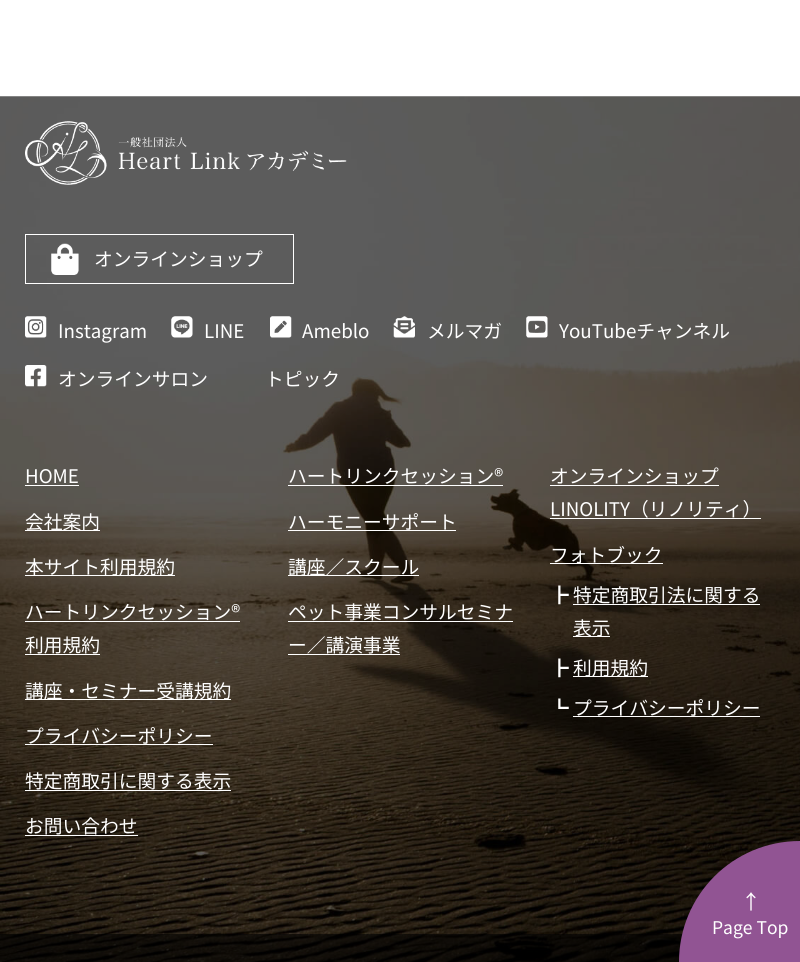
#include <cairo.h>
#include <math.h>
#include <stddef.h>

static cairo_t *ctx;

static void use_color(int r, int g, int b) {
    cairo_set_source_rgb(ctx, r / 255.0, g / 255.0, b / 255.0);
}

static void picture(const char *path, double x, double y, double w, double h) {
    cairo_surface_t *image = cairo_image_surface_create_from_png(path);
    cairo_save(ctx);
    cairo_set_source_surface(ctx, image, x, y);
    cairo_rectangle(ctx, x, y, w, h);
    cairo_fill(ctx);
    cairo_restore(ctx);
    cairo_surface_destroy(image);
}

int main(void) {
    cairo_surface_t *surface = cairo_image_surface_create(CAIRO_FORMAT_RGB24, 800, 962);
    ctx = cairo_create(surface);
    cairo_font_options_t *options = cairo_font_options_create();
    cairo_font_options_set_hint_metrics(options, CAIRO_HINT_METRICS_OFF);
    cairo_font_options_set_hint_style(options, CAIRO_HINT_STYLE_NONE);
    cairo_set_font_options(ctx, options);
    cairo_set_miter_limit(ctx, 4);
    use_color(255, 255, 255);
    cairo_paint(ctx);
    picture("img1.png", 0, 96, 800, 866);
    picture("img2.png", 25, 121, 322, 64);
    cairo_rectangle(ctx, 25.5, 234.5, 268, 49);
    use_color(255, 255, 255);
    cairo_set_line_width(ctx, 1);
    cairo_stroke(ctx);
    picture("img3.png", 51, 243, 28, 32);
    cairo_select_font_face(ctx, "Noto Sans JP", CAIRO_FONT_SLANT_NORMAL, CAIRO_FONT_WEIGHT_NORMAL);
    cairo_set_font_size(ctx, 18.75);
    cairo_move_to(ctx, 94, 266);
    cairo_show_text(ctx, "オンラインショップ");
    picture("img4.png", 25, 316, 22, 22);
    cairo_move_to(ctx, 58, 338);
    cairo_show_text(ctx, "Instagram");
    picture("img5.png", 171, 316, 22, 22);
    cairo_move_to(ctx, 204, 338);
    cairo_show_text(ctx, "LINE");
    picture("img6.png", 270, 316, 22, 22);
    cairo_move_to(ctx, 302, 338);
    cairo_show_text(ctx, "Ameblo");
    picture("img7.png", 393, 316, 22, 22);
    cairo_move_to(ctx, 427, 338);
    cairo_show_text(ctx, "メルマガ");
    picture("img8.png", 526, 316, 22, 22);
    cairo_move_to(ctx, 559, 338);
    cairo_show_text(ctx, "YouTubeチャンネル");
    picture("img9.png", 25, 365, 22, 22);
    cairo_move_to(ctx, 58, 386);
    cairo_show_text(ctx, "オンラインサロン");
    cairo_move_to(ctx, 265, 386);
    cairo_show_text(ctx, "トピック");
    cairo_move_to(ctx, 25, 483);
    cairo_show_text(ctx, "HOME");
    cairo_rectangle(ctx, 25, 485, 54, 1);
    cairo_fill(ctx);
    cairo_rectangle(ctx, 25, 530, 75, 1);
    cairo_fill(ctx);
    cairo_move_to(ctx, 25, 529);
    cairo_show_text(ctx, "会社案内");
    cairo_rectangle(ctx, 25, 575, 150, 1);
    cairo_fill(ctx);
    cairo_move_to(ctx, 25, 574);
    cairo_show_text(ctx, "本サイト利用規約");
    cairo_move_to(ctx, 25, 619);
    cairo_show_text(ctx, "ハートリンクセッション®");
    cairo_rectangle(ctx, 25, 621, 215, 1);
    cairo_fill(ctx);
    cairo_move_to(ctx, 25, 652);
    cairo_show_text(ctx, "利用規約");
    cairo_rectangle(ctx, 25, 654, 75, 1);
    cairo_fill(ctx);
    cairo_rectangle(ctx, 25, 699, 206, 1);
    cairo_fill(ctx);
    cairo_move_to(ctx, 25, 698);
    cairo_show_text(ctx, "講座・セミナー受講規約");
    cairo_move_to(ctx, 25, 743);
    cairo_show_text(ctx, "プライバシーポリシー");
    cairo_rectangle(ctx, 25, 744, 188, 1);
    cairo_fill(ctx);
    cairo_move_to(ctx, 25, 788);
    cairo_show_text(ctx, "特定商取引に関する表示");
    cairo_rectangle(ctx, 25, 790, 206, 1);
    cairo_fill(ctx);
    cairo_move_to(ctx, 25, 833);
    cairo_show_text(ctx, "お問い合わせ");
    cairo_rectangle(ctx, 25, 835, 113, 1);
    cairo_fill(ctx);
    cairo_move_to(ctx, 288, 483);
    cairo_show_text(ctx, "ハートリンクセッション®");
    cairo_rectangle(ctx, 288, 485, 215, 1);
    cairo_fill(ctx);
    cairo_move_to(ctx, 288, 529);
    cairo_show_text(ctx, "ハーモニーサポート");
    cairo_rectangle(ctx, 288, 530, 168, 1);
    cairo_fill(ctx);
    cairo_rectangle(ctx, 288, 575, 131, 1);
    cairo_fill(ctx);
    cairo_move_to(ctx, 288, 574);
    cairo_show_text(ctx, "講座／スクール");
    cairo_move_to(ctx, 288, 619);
    cairo_show_text(ctx, "ペット事業コンサルセミナ");
    cairo_rectangle(ctx, 288, 621, 225, 1);
    cairo_fill(ctx);
    cairo_move_to(ctx, 288, 652);
    cairo_show_text(ctx, "ー／講演事業");
    cairo_rectangle(ctx, 288, 654, 112, 1);
    cairo_fill(ctx);
    cairo_move_to(ctx, 550, 483);
    cairo_show_text(ctx, "オンラインショップ");
    cairo_rectangle(ctx, 550, 485, 169, 1);
    cairo_fill(ctx);
    cairo_move_to(ctx, 550, 516);
    cairo_show_text(ctx, "LINOLITY（リノリティ）");
    cairo_rectangle(ctx, 550, 518, 211, 1);
    cairo_fill(ctx);
    cairo_rectangle(ctx, 550, 563, 113, 1);
    cairo_fill(ctx);
    cairo_move_to(ctx, 550, 562);
    cairo_show_text(ctx, "フォトブック");
    cairo_move_to(ctx, 550, 602);
    cairo_show_text(ctx, "┣");
    cairo_move_to(ctx, 573, 602);
    cairo_show_text(ctx, "特定商取引法に関する");
    cairo_rectangle(ctx, 573, 604, 187, 1);
    cairo_fill(ctx);
    cairo_rectangle(ctx, 573, 636, 37, 1);
    cairo_fill(ctx);
    cairo_move_to(ctx, 573, 635);
    cairo_show_text(ctx, "表示");
    cairo_move_to(ctx, 550, 675);
    cairo_show_text(ctx, "┣");
    cairo_rectangle(ctx, 573, 676, 75, 1);
    cairo_fill(ctx);
    cairo_move_to(ctx, 573, 675);
    cairo_show_text(ctx, "利用規約");
    cairo_move_to(ctx, 550, 715);
    cairo_show_text(ctx, "┗");
    cairo_move_to(ctx, 573, 715);
    cairo_show_text(ctx, "プライバシーポリシー");
    cairo_rectangle(ctx, 573, 716, 187, 1);
    cairo_fill(ctx);
    cairo_set_source_rgba(ctx, 0, 0, 0, 0.6);
    cairo_rectangle(ctx, 0, 934, 683, 28);
    cairo_fill(ctx);
    use_color(145, 84, 147);
    cairo_new_path(ctx);
    cairo_move_to(ctx, 800, 841);
    cairo_line_to(ctx, 800, 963);
    cairo_line_to(ctx, 679, 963);
    cairo_line_to(ctx, 679, 962);
    cairo_curve_to(ctx, 679, 895, 733, 841, 800, 841);
    cairo_close_path(ctx);
    cairo_fill(ctx);
    cairo_set_font_size(ctx, 20);
    use_color(255, 255, 255);
    cairo_move_to(ctx, 741, 909);
    cairo_show_text(ctx, "↑");
    cairo_set_font_size(ctx, 17.5);
    cairo_move_to(ctx, 712, 934);
    cairo_show_text(ctx, "Page Top");
    cairo_surface_write_to_png(surface, "result.png");
    cairo_font_options_destroy(options);
    cairo_destroy(ctx);
    cairo_surface_destroy(surface);
    return 0;
}
